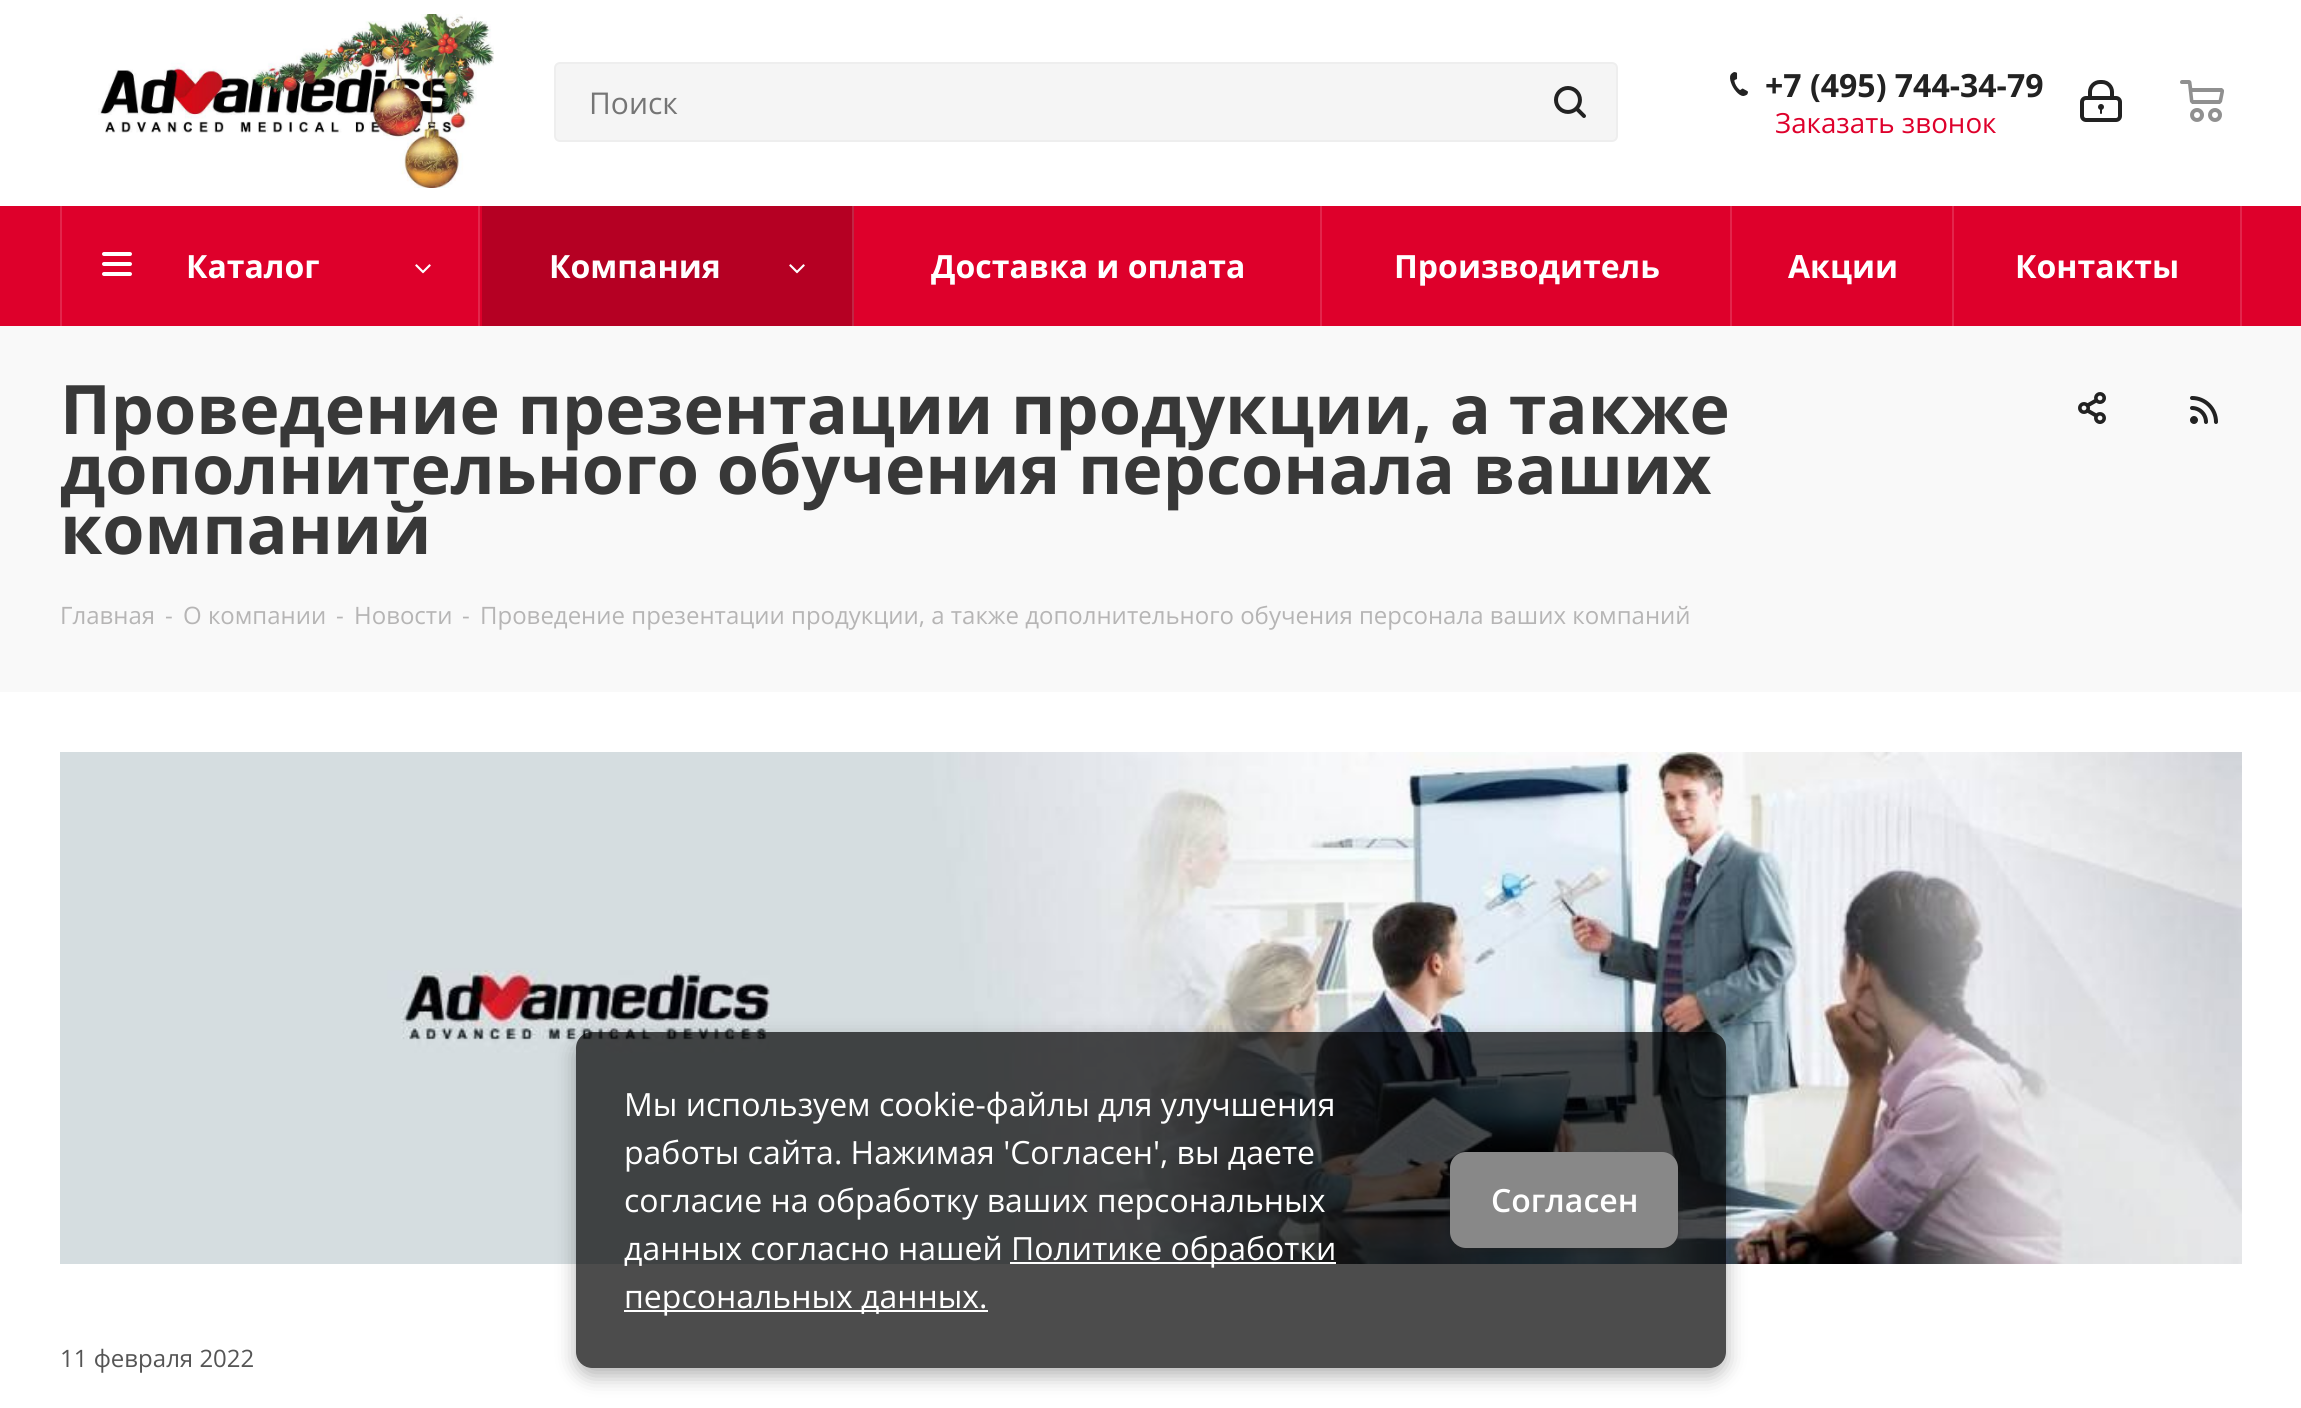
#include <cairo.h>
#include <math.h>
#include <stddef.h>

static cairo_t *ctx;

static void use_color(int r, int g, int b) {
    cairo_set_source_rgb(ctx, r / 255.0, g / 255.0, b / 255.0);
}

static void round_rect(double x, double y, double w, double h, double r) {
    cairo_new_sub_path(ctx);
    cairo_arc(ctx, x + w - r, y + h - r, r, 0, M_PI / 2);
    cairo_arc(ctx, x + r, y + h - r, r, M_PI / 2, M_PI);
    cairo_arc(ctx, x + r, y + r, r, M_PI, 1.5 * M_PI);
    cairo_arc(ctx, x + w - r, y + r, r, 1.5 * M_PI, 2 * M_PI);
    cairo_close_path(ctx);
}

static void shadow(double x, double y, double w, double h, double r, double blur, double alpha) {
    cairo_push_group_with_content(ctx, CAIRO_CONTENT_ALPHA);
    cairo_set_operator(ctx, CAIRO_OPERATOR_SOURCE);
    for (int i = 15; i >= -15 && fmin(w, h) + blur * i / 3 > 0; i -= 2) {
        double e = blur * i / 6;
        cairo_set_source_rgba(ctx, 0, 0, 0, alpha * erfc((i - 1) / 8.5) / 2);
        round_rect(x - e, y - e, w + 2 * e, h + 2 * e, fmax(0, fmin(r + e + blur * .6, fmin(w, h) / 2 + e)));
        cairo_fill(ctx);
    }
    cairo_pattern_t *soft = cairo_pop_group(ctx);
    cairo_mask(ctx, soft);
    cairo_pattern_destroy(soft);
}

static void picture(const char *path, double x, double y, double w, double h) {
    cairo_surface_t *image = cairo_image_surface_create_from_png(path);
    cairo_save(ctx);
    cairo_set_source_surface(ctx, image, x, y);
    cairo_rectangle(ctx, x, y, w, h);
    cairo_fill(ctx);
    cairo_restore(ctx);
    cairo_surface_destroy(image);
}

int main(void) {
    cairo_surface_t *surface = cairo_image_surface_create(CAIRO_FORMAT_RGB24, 2301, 1408);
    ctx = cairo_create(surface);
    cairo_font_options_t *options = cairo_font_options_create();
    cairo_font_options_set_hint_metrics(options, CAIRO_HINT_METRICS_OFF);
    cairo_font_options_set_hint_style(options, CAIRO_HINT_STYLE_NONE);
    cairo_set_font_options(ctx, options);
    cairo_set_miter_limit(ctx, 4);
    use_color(255, 255, 255);
    cairo_paint(ctx);
    picture("img1.png", 98, 14, 396, 174);
    use_color(245, 245, 245);
    round_rect(555, 63, 1062, 78, 5);
    cairo_fill_preserve(ctx);
    use_color(238, 238, 238);
    cairo_stroke(ctx);
    cairo_select_font_face(ctx, "Open Sans", CAIRO_FONT_SLANT_NORMAL, CAIRO_FONT_WEIGHT_NORMAL);
    cairo_set_font_size(ctx, 30);
    use_color(117, 117, 117);
    cairo_move_to(ctx, 589, 114);
    cairo_show_text(ctx, "Поиск");
    picture("img2.png", 1554, 86, 32, 32);
    picture("img3.png", 1730, 72, 18, 24);
    cairo_select_font_face(ctx, "Open Sans", CAIRO_FONT_SLANT_NORMAL, CAIRO_FONT_WEIGHT_BOLD);
    cairo_set_font_size(ctx, 32);
    use_color(34, 34, 34);
    cairo_move_to(ctx, 1765, 97);
    cairo_show_text(ctx, "+7 (495) 744-34-79");
    cairo_select_font_face(ctx, "Open Sans", CAIRO_FONT_SLANT_NORMAL, CAIRO_FONT_WEIGHT_NORMAL);
    cairo_set_font_size(ctx, 27.75);
    use_color(222, 0, 43);
    cairo_move_to(ctx, 1775, 133);
    cairo_show_text(ctx, "Заказать звонок");
    picture("img4.png", 2080, 80, 42, 42);
    picture("img5.png", 2180, 80, 44, 42);
    cairo_rectangle(ctx, 0, 206, 2301, 120);
    cairo_fill(ctx);
    use_color(227, 38, 75);
    cairo_rectangle(ctx, 60, 206, 2, 120);
    cairo_fill(ctx);
    cairo_rectangle(ctx, 478, 206, 2, 120);
    cairo_fill(ctx);
    picture("img6.png", 102, 252, 30, 24);
    cairo_select_font_face(ctx, "Open Sans", CAIRO_FONT_SLANT_NORMAL, CAIRO_FONT_WEIGHT_BOLD);
    cairo_set_font_size(ctx, 32);
    use_color(255, 255, 255);
    cairo_move_to(ctx, 186, 278);
    cairo_show_text(ctx, "Каталог");
    picture("img7.png", 415, 264, 16, 10);
    use_color(181, 0, 35);
    cairo_rectangle(ctx, 482, 206, 370, 120);
    cairo_fill(ctx);
    use_color(192, 38, 68);
    cairo_rectangle(ctx, 852, 206, 2, 120);
    cairo_fill(ctx);
    use_color(255, 255, 255);
    cairo_move_to(ctx, 549, 278);
    cairo_show_text(ctx, "Компания");
    picture("img8.png", 789, 264, 16, 10);
    use_color(227, 38, 75);
    cairo_rectangle(ctx, 1320, 206, 2, 120);
    cairo_fill(ctx);
    use_color(255, 255, 255);
    cairo_move_to(ctx, 931, 278);
    cairo_show_text(ctx, "Доставка и оплата");
    use_color(227, 38, 75);
    cairo_rectangle(ctx, 1730, 206, 2, 120);
    cairo_fill(ctx);
    use_color(255, 255, 255);
    cairo_move_to(ctx, 1394, 278);
    cairo_show_text(ctx, "Производитель");
    use_color(227, 38, 75);
    cairo_rectangle(ctx, 1952, 206, 2, 120);
    cairo_fill(ctx);
    use_color(255, 255, 255);
    cairo_move_to(ctx, 1788, 278);
    cairo_show_text(ctx, "Акции");
    use_color(227, 38, 75);
    cairo_rectangle(ctx, 2240, 206, 2, 120);
    cairo_fill(ctx);
    use_color(255, 255, 255);
    cairo_move_to(ctx, 2015, 278);
    cairo_show_text(ctx, "Контакты");
    use_color(249, 249, 249);
    cairo_rectangle(ctx, 0, 326, 2301, 366);
    cairo_fill(ctx);
    cairo_set_font_size(ctx, 68.25);
    use_color(56, 56, 56);
    cairo_move_to(ctx, 60, 434);
    cairo_show_text(ctx, "Проведение презентации продукции, а также");
    cairo_move_to(ctx, 60, 494);
    cairo_show_text(ctx, "дополнительного обучения персонала ваших");
    cairo_move_to(ctx, 60, 554);
    cairo_show_text(ctx, "компаний");
    picture("img9.png", 2078, 392, 28, 32);
    picture("img10.png", 2190, 396, 28, 28);
    cairo_select_font_face(ctx, "Open Sans", CAIRO_FONT_SLANT_NORMAL, CAIRO_FONT_WEIGHT_NORMAL);
    cairo_set_font_size(ctx, 24);
    use_color(182, 181, 181);
    cairo_move_to(ctx, 60, 624);
    cairo_show_text(ctx, "Главная");
    cairo_move_to(ctx, 165, 624);
    cairo_show_text(ctx, "-");
    cairo_move_to(ctx, 183, 624);
    cairo_show_text(ctx, "О компании");
    cairo_move_to(ctx, 336, 624);
    cairo_show_text(ctx, "-");
    cairo_move_to(ctx, 354, 624);
    cairo_show_text(ctx, "Новости");
    cairo_move_to(ctx, 462, 624);
    cairo_show_text(ctx, "-");
    cairo_move_to(ctx, 480, 624);
    cairo_show_text(ctx, "Проведение презентации продукции, а также дополнительного обучения персонала ваших компаний");
    picture("img11.png", 60, 752, 2182, 512);
    use_color(85, 85, 85);
    cairo_move_to(ctx, 60, 1367);
    cairo_show_text(ctx, "11 февраля 2022");
    cairo_save(ctx);
    cairo_set_fill_rule(ctx, CAIRO_FILL_RULE_EVEN_ODD);
    cairo_new_path(ctx);
    cairo_move_to(ctx, 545, 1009);
    cairo_line_to(ctx, 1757, 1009);
    cairo_line_to(ctx, 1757, 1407);
    cairo_line_to(ctx, 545, 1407);
    cairo_close_path(ctx);
    cairo_move_to(ctx, 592, 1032);
    cairo_line_to(ctx, 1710, 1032);
    cairo_curve_to(ctx, 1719, 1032, 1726, 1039, 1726, 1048);
    cairo_line_to(ctx, 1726, 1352);
    cairo_curve_to(ctx, 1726, 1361, 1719, 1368, 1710, 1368);
    cairo_line_to(ctx, 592, 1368);
    cairo_curve_to(ctx, 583, 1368, 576, 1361, 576, 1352);
    cairo_line_to(ctx, 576, 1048);
    cairo_curve_to(ctx, 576, 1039, 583, 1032, 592, 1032);
    cairo_close_path(ctx);
    cairo_clip(ctx);
    use_color(0, 0, 0);
    shadow(576, 1040, 1150, 336, 16, 10, 0.3);
    cairo_restore(ctx);
    cairo_set_source_rgba(ctx, 0, 0, 0, 0.7);
    round_rect(576, 1032, 1150, 336, 16);
    cairo_fill(ctx);
    cairo_set_font_size(ctx, 32);
    use_color(255, 255, 255);
    cairo_move_to(ctx, 624, 1116);
    cairo_show_text(ctx, "Мы используем cookie-файлы для улучшения");
    cairo_move_to(ctx, 624, 1164);
    cairo_show_text(ctx, "работы сайта. Нажимая 'Согласен', вы даете");
    cairo_move_to(ctx, 624, 1212);
    cairo_show_text(ctx, "согласие на обработку ваших персональных");
    cairo_move_to(ctx, 624, 1260);
    cairo_show_text(ctx, "данных согласно нашей");
    cairo_rectangle(ctx, 1010, 1262, 326, 2);
    cairo_fill(ctx);
    cairo_move_to(ctx, 1011, 1260);
    cairo_show_text(ctx, "Политике обработки");
    cairo_rectangle(ctx, 624, 1310, 364, 2);
    cairo_fill(ctx);
    cairo_move_to(ctx, 624, 1308);
    cairo_show_text(ctx, "персональных данных.");
    use_color(34, 34, 34);
    shadow(1450, 1156, 228, 96, 16, 3, 0.5);
    use_color(136, 136, 136);
    round_rect(1450, 1152, 228, 96, 16);
    cairo_fill(ctx);
    cairo_select_font_face(ctx, "Open Sans SemiBold", CAIRO_FONT_SLANT_NORMAL, CAIRO_FONT_WEIGHT_NORMAL);
    use_color(255, 255, 255);
    cairo_move_to(ctx, 1491, 1212);
    cairo_show_text(ctx, "Согласен");
    cairo_surface_write_to_png(surface, "result.png");
    cairo_font_options_destroy(options);
    cairo_destroy(ctx);
    cairo_surface_destroy(surface);
    return 0;
}
